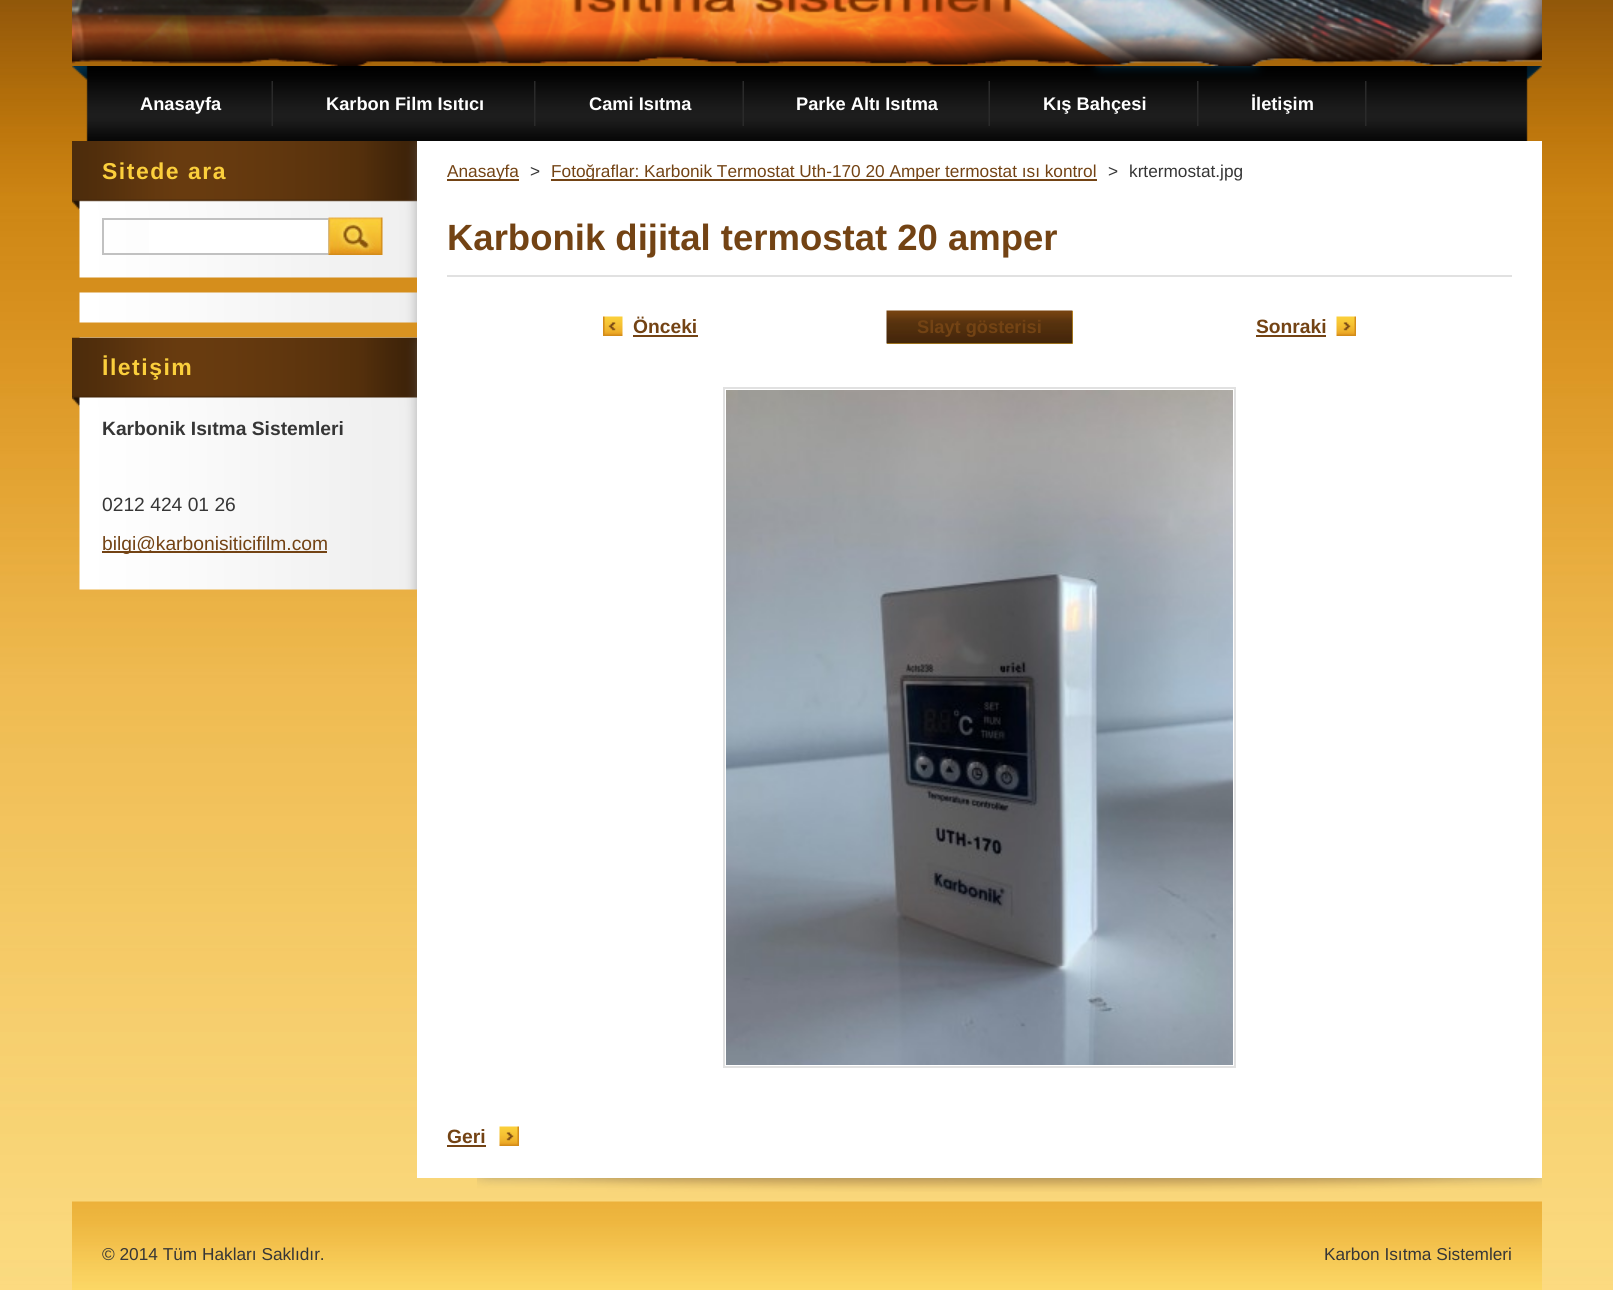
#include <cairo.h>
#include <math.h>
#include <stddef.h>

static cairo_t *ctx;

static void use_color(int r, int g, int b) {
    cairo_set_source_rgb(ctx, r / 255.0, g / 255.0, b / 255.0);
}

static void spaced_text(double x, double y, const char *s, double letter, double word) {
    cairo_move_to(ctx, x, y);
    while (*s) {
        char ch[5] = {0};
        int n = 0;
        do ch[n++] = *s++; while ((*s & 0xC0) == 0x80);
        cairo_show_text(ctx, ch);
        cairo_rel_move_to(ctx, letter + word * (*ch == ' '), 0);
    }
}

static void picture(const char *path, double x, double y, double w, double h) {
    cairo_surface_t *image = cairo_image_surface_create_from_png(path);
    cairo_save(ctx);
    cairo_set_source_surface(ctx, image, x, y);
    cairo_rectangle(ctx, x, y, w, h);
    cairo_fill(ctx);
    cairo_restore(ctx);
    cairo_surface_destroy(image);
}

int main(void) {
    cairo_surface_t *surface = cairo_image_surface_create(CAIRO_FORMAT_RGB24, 1613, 1290);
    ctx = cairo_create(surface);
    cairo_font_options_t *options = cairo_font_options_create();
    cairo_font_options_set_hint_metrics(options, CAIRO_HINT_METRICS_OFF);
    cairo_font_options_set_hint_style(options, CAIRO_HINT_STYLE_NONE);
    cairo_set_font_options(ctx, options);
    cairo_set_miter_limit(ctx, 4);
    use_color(255, 255, 255);
    cairo_paint(ctx);
    picture("img1.png", 0, 0, 1613, 1290);
    picture("img2.png", 72, 0, 1470, 66);
    picture("img3.png", 72, 66, 1470, 75);
    picture("img4.png", 271, 81, 2, 45);
    cairo_select_font_face(ctx, "Liberation Sans", CAIRO_FONT_SLANT_NORMAL, CAIRO_FONT_WEIGHT_BOLD);
    cairo_set_font_size(ctx, 18.25);
    use_color(255, 255, 255);
    cairo_move_to(ctx, 140, 110);
    cairo_show_text(ctx, "Anasayfa");
    picture("img5.png", 534, 81, 2, 45);
    cairo_move_to(ctx, 326, 110);
    cairo_show_text(ctx, "Karbon Film Isıtıcı");
    picture("img4.png", 742, 81, 2, 45);
    cairo_move_to(ctx, 589, 110);
    cairo_show_text(ctx, "Cami Isıtma");
    picture("img4.png", 988, 81, 2, 45);
    cairo_move_to(ctx, 796, 110);
    cairo_show_text(ctx, "Parke Altı Isıtma");
    picture("img5.png", 1197, 81, 2, 45);
    cairo_move_to(ctx, 1043, 110);
    cairo_show_text(ctx, "Kış Bahçesi");
    picture("img5.png", 1365, 81, 2, 45);
    cairo_move_to(ctx, 1251, 110);
    cairo_show_text(ctx, "İletişim");
    picture("img6.png", 79, 201, 338, 77);
    picture("img7.png", 72, 141, 345, 69);
    cairo_set_font_size(ctx, 23);
    use_color(251, 207, 60);
    spaced_text(102, 179, "Sitede ara", 1.5, 0);
    use_color(255, 255, 255);
    cairo_rectangle(ctx, 149, 220, 179, 33);
    cairo_fill(ctx);
    cairo_rectangle(ctx, 103, 219, 226, 35);
    use_color(193, 193, 193);
    cairo_stroke(ctx);
    picture("img8.png", 328, 217, 55, 38);
    picture("img9.png", 79, 292, 338, 31);
    picture("img10.png", 79, 337, 338, 253);
    picture("img11.png", 72, 337, 345, 70);
    use_color(251, 207, 60);
    spaced_text(102, 375, "İletişim", 1.5, 0);
    cairo_set_font_size(ctx, 19.25);
    use_color(54, 54, 54);
    cairo_move_to(ctx, 102, 435);
    cairo_show_text(ctx, "Karbonik Isıtma Sistemleri");
    cairo_select_font_face(ctx, "Liberation Sans", CAIRO_FONT_SLANT_NORMAL, CAIRO_FONT_WEIGHT_NORMAL);
    cairo_move_to(ctx, 102, 511);
    cairo_show_text(ctx, "0212 424 01 26");
    use_color(115, 67, 20);
    cairo_rectangle(ctx, 102, 551, 225, 2);
    cairo_fill(ctx);
    cairo_move_to(ctx, 102, 550);
    cairo_show_text(ctx, "bilgi@karbonisiticifilm.com");
    picture("img12.png", 477, 1178, 1065, 14);
    use_color(255, 255, 255);
    cairo_rectangle(ctx, 417, 141, 1125, 1037);
    cairo_fill(ctx);
    use_color(115, 67, 20);
    cairo_rectangle(ctx, 447, 179, 72, 2);
    cairo_fill(ctx);
    cairo_set_font_size(ctx, 17.25);
    cairo_move_to(ctx, 447, 177);
    cairo_show_text(ctx, "Anasayfa");
    use_color(54, 54, 54);
    cairo_move_to(ctx, 530, 177);
    cairo_show_text(ctx, ">");
    use_color(115, 67, 20);
    cairo_rectangle(ctx, 551, 179, 546, 2);
    cairo_fill(ctx);
    cairo_move_to(ctx, 551, 177);
    cairo_show_text(ctx, "Fotoğraflar: Karbonik Termostat Uth-170 20 Amper termostat ısı kontrol");
    use_color(54, 54, 54);
    cairo_move_to(ctx, 1108, 177);
    cairo_show_text(ctx, ">");
    cairo_move_to(ctx, 1129, 177);
    cairo_show_text(ctx, "krtermostat.jpg");
    use_color(225, 225, 225);
    cairo_rectangle(ctx, 447, 275, 1065, 2);
    cairo_fill(ctx);
    cairo_select_font_face(ctx, "Liberation Sans", CAIRO_FONT_SLANT_NORMAL, CAIRO_FONT_WEIGHT_BOLD);
    cairo_set_font_size(ctx, 36.5);
    use_color(115, 67, 20);
    cairo_move_to(ctx, 447, 250);
    cairo_show_text(ctx, "Karbonik dijital termostat 20 amper");
    picture("img13.png", 603, 316, 20, 20);
    cairo_set_font_size(ctx, 19.25);
    cairo_move_to(ctx, 633, 333);
    cairo_show_text(ctx, "Önceki");
    cairo_rectangle(ctx, 633, 335, 65, 2);
    cairo_fill(ctx);
    use_color(244, 191, 50);
    cairo_rectangle(ctx, 887, 311, 186, 33);
    cairo_fill(ctx);
    picture("img14.png", 886, 310, 187, 34);
    cairo_set_font_size(ctx, 18.25);
    use_color(115, 67, 20);
    cairo_move_to(ctx, 917, 333);
    cairo_show_text(ctx, "Slayt gösterisi");
    picture("img15.png", 1336, 316, 20, 20);
    cairo_set_font_size(ctx, 19.25);
    cairo_move_to(ctx, 1256, 333);
    cairo_show_text(ctx, "Sonraki");
    cairo_rectangle(ctx, 1256, 335, 70, 2);
    cairo_fill(ctx);
    cairo_rectangle(ctx, 724, 388, 511, 679);
    use_color(225, 225, 225);
    cairo_stroke(ctx);
    picture("img16.png", 726, 390, 507, 675);
    picture("img17.png", 499, 1126, 20, 20);
    use_color(115, 67, 20);
    cairo_move_to(ctx, 447, 1143);
    cairo_show_text(ctx, "Geri");
    cairo_rectangle(ctx, 447, 1145, 39, 2);
    cairo_fill(ctx);
    picture("img18.png", 72, 1201, 1470, 89);
    cairo_select_font_face(ctx, "Liberation Sans", CAIRO_FONT_SLANT_NORMAL, CAIRO_FONT_WEIGHT_NORMAL);
    cairo_set_font_size(ctx, 17.25);
    use_color(54, 54, 54);
    cairo_move_to(ctx, 102, 1260);
    cairo_show_text(ctx, "© 2014 Tüm Hakları Saklıdır.");
    cairo_move_to(ctx, 1324, 1260);
    cairo_show_text(ctx, "Karbon Isıtma Sistemleri");
    cairo_surface_write_to_png(surface, "result.png");
    cairo_font_options_destroy(options);
    cairo_destroy(ctx);
    cairo_surface_destroy(surface);
    return 0;
}
